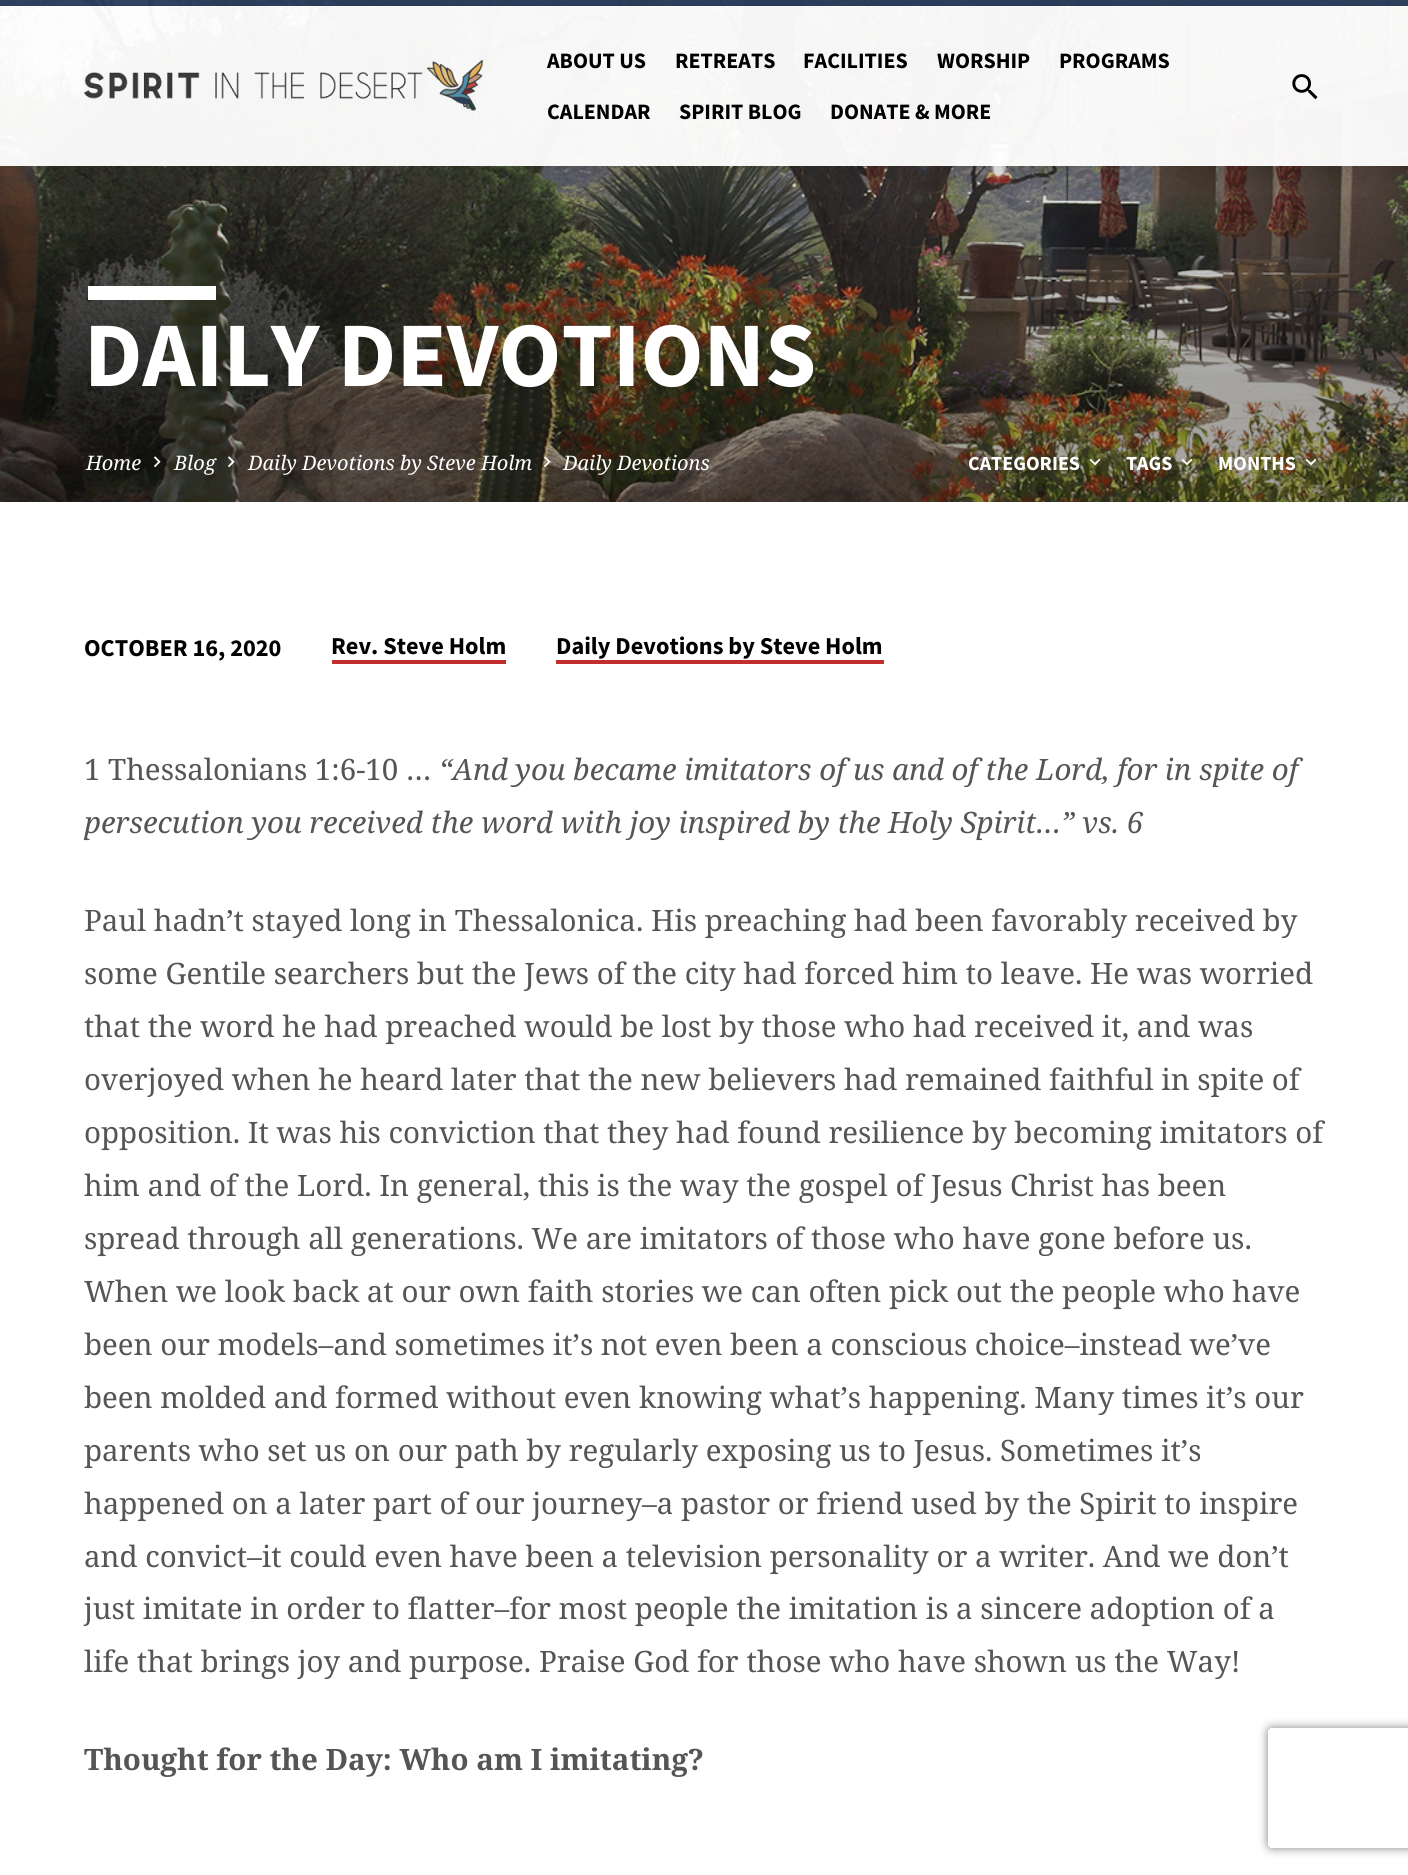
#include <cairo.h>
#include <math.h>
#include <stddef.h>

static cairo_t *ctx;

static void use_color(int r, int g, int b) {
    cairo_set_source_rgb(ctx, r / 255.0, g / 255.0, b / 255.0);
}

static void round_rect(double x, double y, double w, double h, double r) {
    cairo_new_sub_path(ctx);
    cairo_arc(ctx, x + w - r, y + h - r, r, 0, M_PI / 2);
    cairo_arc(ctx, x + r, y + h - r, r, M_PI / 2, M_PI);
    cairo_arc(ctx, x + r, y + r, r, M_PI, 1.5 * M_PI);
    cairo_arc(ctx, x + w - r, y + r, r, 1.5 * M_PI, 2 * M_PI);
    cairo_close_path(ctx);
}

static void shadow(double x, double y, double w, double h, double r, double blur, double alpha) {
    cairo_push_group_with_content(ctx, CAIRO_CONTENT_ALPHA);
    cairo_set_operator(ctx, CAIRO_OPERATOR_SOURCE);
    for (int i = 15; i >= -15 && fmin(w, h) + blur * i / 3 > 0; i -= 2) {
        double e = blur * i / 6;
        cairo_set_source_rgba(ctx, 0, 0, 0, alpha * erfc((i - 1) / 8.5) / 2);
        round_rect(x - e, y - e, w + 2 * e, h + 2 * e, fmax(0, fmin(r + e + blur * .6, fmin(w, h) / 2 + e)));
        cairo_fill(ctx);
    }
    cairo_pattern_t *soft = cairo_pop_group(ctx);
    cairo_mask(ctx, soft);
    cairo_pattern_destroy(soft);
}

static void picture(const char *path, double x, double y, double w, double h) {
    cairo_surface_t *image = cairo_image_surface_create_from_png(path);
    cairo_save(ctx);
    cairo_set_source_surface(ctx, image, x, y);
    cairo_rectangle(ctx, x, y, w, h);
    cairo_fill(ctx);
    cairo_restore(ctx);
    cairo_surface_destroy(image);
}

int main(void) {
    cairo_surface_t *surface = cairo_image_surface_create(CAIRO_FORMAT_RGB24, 1408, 1875);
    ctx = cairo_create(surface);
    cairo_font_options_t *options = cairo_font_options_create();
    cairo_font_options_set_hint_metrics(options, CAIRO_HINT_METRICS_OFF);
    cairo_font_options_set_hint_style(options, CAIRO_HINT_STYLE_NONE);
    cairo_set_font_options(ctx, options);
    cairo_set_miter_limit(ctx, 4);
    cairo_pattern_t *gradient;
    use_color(255, 255, 255);
    cairo_paint(ctx);
    picture("img3.png", 0, 0, 1408, 502);
    cairo_set_source_rgba(ctx, 0.161, 0.247, 0.373, 0.95);
    cairo_rectangle(ctx, 0, 0, 1408, 6);
    cairo_fill(ctx);
    gradient = cairo_pattern_create_linear(704, 0, 704, 502);
    cairo_pattern_add_color_stop_rgba(gradient, 0, 0, 0, 0, 0);
    cairo_pattern_add_color_stop_rgba(gradient, 0.36, 0, 0, 0, 0);
    cairo_pattern_add_color_stop_rgba(gradient, 0.76, 0, 0, 0, 0.28);
    cairo_pattern_add_color_stop_rgba(gradient, 1, 0, 0, 0, 0.28);
    cairo_set_source(ctx, gradient);
    cairo_pattern_destroy(gradient);
    cairo_rectangle(ctx, 0, 196, 1408, 306);
    cairo_fill(ctx);
    cairo_save(ctx);
    cairo_set_fill_rule(ctx, CAIRO_FILL_RULE_EVEN_ODD);
    cairo_new_path(ctx);
    cairo_move_to(ctx, 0, 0);
    cairo_line_to(ctx, 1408, 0);
    cairo_line_to(ctx, 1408, 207);
    cairo_line_to(ctx, 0, 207);
    cairo_close_path(ctx);
    cairo_move_to(ctx, 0, 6);
    cairo_line_to(ctx, 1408, 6);
    cairo_line_to(ctx, 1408, 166);
    cairo_line_to(ctx, 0, 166);
    cairo_close_path(ctx);
    cairo_clip(ctx);
    use_color(0, 0, 0);
    shadow(0, 10, 1408, 160, 0, 12, 0.14);
    cairo_restore(ctx);
    cairo_set_source_rgba(ctx, 1, 1, 1, 0.95);
    cairo_rectangle(ctx, 0, 6, 1408, 160);
    cairo_fill(ctx);
    picture("img1.png", 84, 60, 400, 51);
    cairo_select_font_face(ctx, "Source Sans Pro", CAIRO_FONT_SLANT_NORMAL, CAIRO_FONT_WEIGHT_BOLD);
    cairo_set_font_size(ctx, 22);
    use_color(0, 0, 0);
    cairo_move_to(ctx, 547, 68);
    cairo_show_text(ctx, "ABOUT US");
    cairo_move_to(ctx, 675, 68);
    cairo_show_text(ctx, "RETREATS");
    cairo_move_to(ctx, 803, 68);
    cairo_show_text(ctx, "FACILITIES");
    cairo_move_to(ctx, 937, 68);
    cairo_show_text(ctx, "WORSHIP");
    cairo_move_to(ctx, 1059, 68);
    cairo_show_text(ctx, "PROGRAMS");
    cairo_move_to(ctx, 547, 119);
    cairo_show_text(ctx, "CALENDAR");
    cairo_move_to(ctx, 679, 119);
    cairo_show_text(ctx, "SPIRIT BLOG");
    cairo_move_to(ctx, 830, 119);
    cairo_show_text(ctx, "DONATE & MORE");
    picture("img2.png", 1292, 74, 26, 26);
    use_color(255, 255, 255);
    cairo_rectangle(ctx, 88, 286, 128, 14);
    cairo_fill(ctx);
    cairo_set_font_size(ctx, 92.25);
    cairo_move_to(ctx, 84, 386);
    cairo_show_text(ctx, "DAILY DEVOTIONS");
    cairo_select_font_face(ctx, "Noto Serif", CAIRO_FONT_SLANT_ITALIC, CAIRO_FONT_WEIGHT_NORMAL);
    cairo_set_font_size(ctx, 20);
    cairo_move_to(ctx, 86, 470);
    cairo_show_text(ctx, "Home");
    picture("img4.png", 153, 456, 8, 12);
    cairo_move_to(ctx, 174, 470);
    cairo_show_text(ctx, "Blog");
    picture("img5.png", 227, 456, 8, 12);
    cairo_move_to(ctx, 248, 470);
    cairo_show_text(ctx, "Daily Devotions by Steve Holm");
    picture("img6.png", 543, 456, 8, 12);
    cairo_move_to(ctx, 563, 470);
    cairo_show_text(ctx, "Daily Devotions");
    cairo_select_font_face(ctx, "Source Sans Pro", CAIRO_FONT_SLANT_NORMAL, CAIRO_FONT_WEIGHT_BOLD);
    cairo_move_to(ctx, 968, 470);
    cairo_show_text(ctx, "CATEGORIES");
    picture("img7.png", 1089, 458, 12, 8);
    cairo_move_to(ctx, 1126, 470);
    cairo_show_text(ctx, "TAGS");
    picture("img8.png", 1181, 458, 12, 8);
    cairo_move_to(ctx, 1218, 470);
    cairo_show_text(ctx, "MONTHS");
    picture("img9.png", 1305, 458, 12, 8);
    cairo_set_font_size(ctx, 24.25);
    use_color(0, 0, 0);
    cairo_move_to(ctx, 84, 656);
    cairo_show_text(ctx, "OCTOBER 16, 2020");
    cairo_move_to(ctx, 331, 654);
    cairo_show_text(ctx, "Rev. Steve Holm");
    use_color(196, 45, 45);
    cairo_rectangle(ctx, 332, 660, 174, 4);
    cairo_fill(ctx);
    use_color(0, 0, 0);
    cairo_move_to(ctx, 556, 654);
    cairo_show_text(ctx, "Daily Devotions by Steve Holm");
    use_color(196, 45, 45);
    cairo_rectangle(ctx, 556, 660, 328, 4);
    cairo_fill(ctx);
    cairo_select_font_face(ctx, "Noto Serif", CAIRO_FONT_SLANT_NORMAL, CAIRO_FONT_WEIGHT_NORMAL);
    cairo_set_font_size(ctx, 29.45);
    use_color(85, 85, 85);
    cairo_move_to(ctx, 84, 780);
    cairo_show_text(ctx, "1 Thessalonians 1:6-10 …");
    cairo_select_font_face(ctx, "Noto Serif", CAIRO_FONT_SLANT_ITALIC, CAIRO_FONT_WEIGHT_NORMAL);
    cairo_move_to(ctx, 439, 780);
    cairo_show_text(ctx, "“And you became imitators of us and of the Lord, for in spite of");
    cairo_move_to(ctx, 84, 833);
    cairo_show_text(ctx, "persecution you received the word with joy inspired by the Holy Spirit…” vs. 6");
    cairo_select_font_face(ctx, "Noto Serif", CAIRO_FONT_SLANT_NORMAL, CAIRO_FONT_WEIGHT_NORMAL);
    cairo_move_to(ctx, 84, 931);
    cairo_show_text(ctx, "Paul hadn’t stayed long in Thessalonica. His preaching had been favorably received by");
    cairo_move_to(ctx, 84, 984);
    cairo_show_text(ctx, "some Gentile searchers but the Jews of the city had forced him to leave. He was worried");
    cairo_move_to(ctx, 84, 1037);
    cairo_show_text(ctx, "that the word he had preached would be lost by those who had received it, and was");
    cairo_move_to(ctx, 84, 1090);
    cairo_show_text(ctx, "overjoyed when he heard later that the new believers had remained faithful in spite of");
    cairo_move_to(ctx, 84, 1143);
    cairo_show_text(ctx, "opposition. It was his conviction that they had found resilience by becoming imitators of");
    cairo_move_to(ctx, 84, 1196);
    cairo_show_text(ctx, "him and of the Lord. In general, this is the way the gospel of Jesus Christ has been");
    cairo_move_to(ctx, 84, 1249);
    cairo_show_text(ctx, "spread through all generations. We are imitators of those who have gone before us.");
    cairo_move_to(ctx, 84, 1302);
    cairo_show_text(ctx, "When we look back at our own faith stories we can often pick out the people who have");
    cairo_move_to(ctx, 84, 1355);
    cairo_show_text(ctx, "been our models–and sometimes it’s not even been a conscious choice–instead we’ve");
    cairo_move_to(ctx, 84, 1408);
    cairo_show_text(ctx, "been molded and formed without even knowing what’s happening. Many times it’s our");
    cairo_move_to(ctx, 84, 1461);
    cairo_show_text(ctx, "parents who set us on our path by regularly exposing us to Jesus. Sometimes it’s");
    cairo_move_to(ctx, 84, 1514);
    cairo_show_text(ctx, "happened on a later part of our journey–a pastor or friend used by the Spirit to inspire");
    cairo_move_to(ctx, 84, 1567);
    cairo_show_text(ctx, "and convict–it could even have been a television personality or a writer. And we don’t");
    cairo_move_to(ctx, 84, 1619);
    cairo_show_text(ctx, "just imitate in order to flatter–for most people the imitation is a sincere adoption of a");
    cairo_move_to(ctx, 84, 1672);
    cairo_show_text(ctx, "life that brings joy and purpose. Praise God for those who have shown us the Way!");
    cairo_select_font_face(ctx, "Noto Serif", CAIRO_FONT_SLANT_NORMAL, CAIRO_FONT_WEIGHT_BOLD);
    cairo_move_to(ctx, 84, 1770);
    cairo_show_text(ctx, "Thought for the Day: Who am I imitating?");
    cairo_save(ctx);
    cairo_set_fill_rule(ctx, CAIRO_FILL_RULE_EVEN_ODD);
    cairo_new_path(ctx);
    cairo_move_to(ctx, 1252, 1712);
    cairo_line_to(ctx, 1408, 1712);
    cairo_line_to(ctx, 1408, 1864);
    cairo_line_to(ctx, 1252, 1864);
    cairo_close_path(ctx);
    cairo_move_to(ctx, 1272, 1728);
    cairo_line_to(ctx, 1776, 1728);
    cairo_curve_to(ctx, 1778, 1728, 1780, 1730, 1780, 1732);
    cairo_line_to(ctx, 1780, 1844);
    cairo_curve_to(ctx, 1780, 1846, 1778, 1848, 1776, 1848);
    cairo_line_to(ctx, 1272, 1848);
    cairo_curve_to(ctx, 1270, 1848, 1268, 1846, 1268, 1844);
    cairo_line_to(ctx, 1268, 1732);
    cairo_curve_to(ctx, 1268, 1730, 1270, 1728, 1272, 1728);
    cairo_close_path(ctx);
    cairo_clip(ctx);
    use_color(128, 128, 128);
    shadow(1268, 1728, 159, 120, 4, 5, 1);
    cairo_restore(ctx);
    cairo_surface_write_to_png(surface, "result.png");
    cairo_font_options_destroy(options);
    cairo_destroy(ctx);
    cairo_surface_destroy(surface);
    return 0;
}
